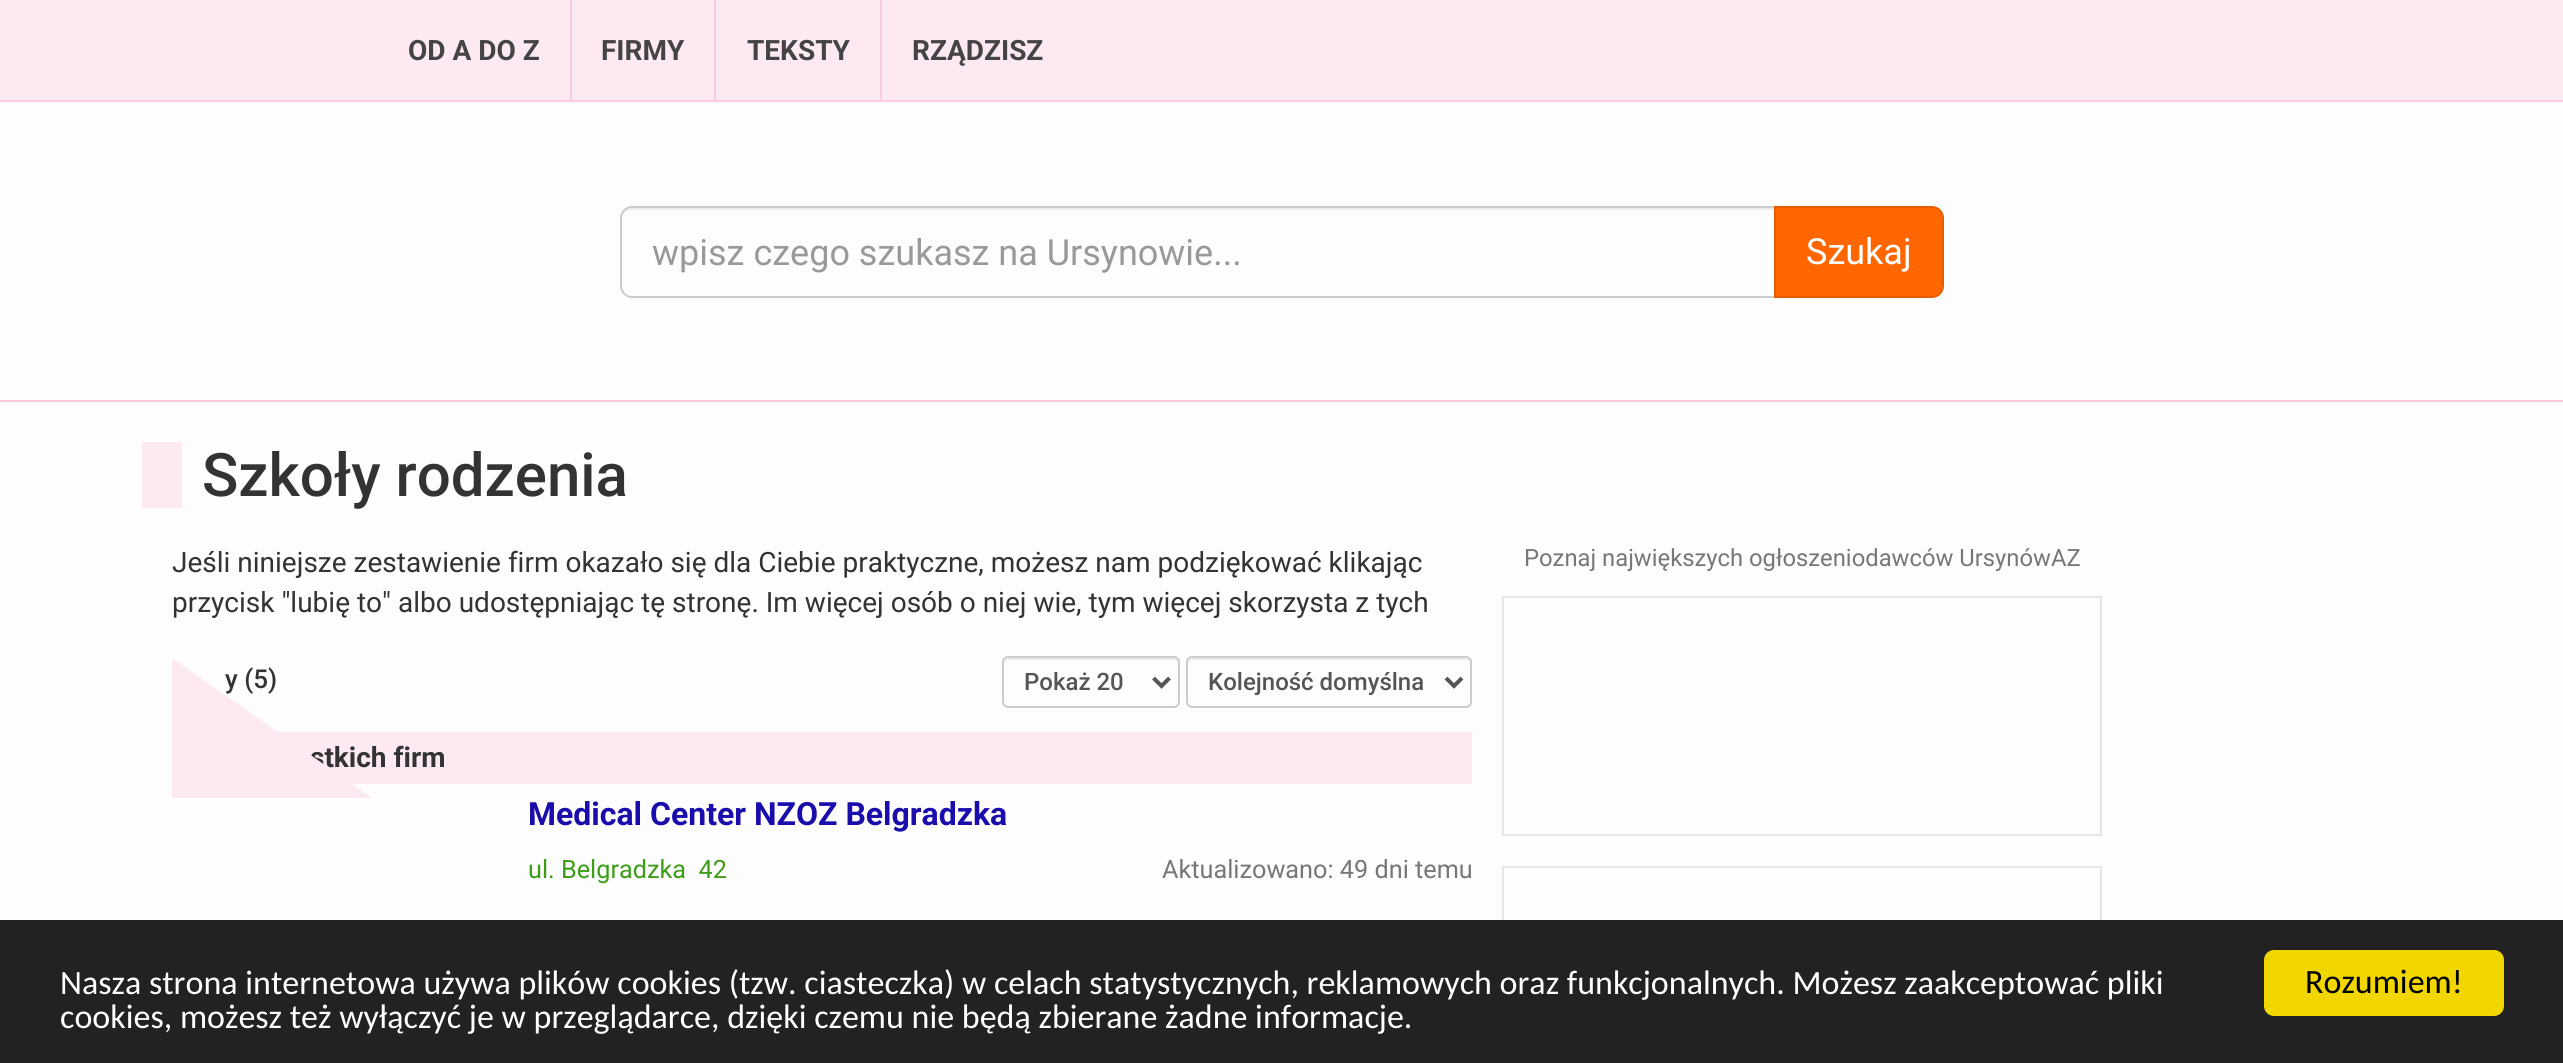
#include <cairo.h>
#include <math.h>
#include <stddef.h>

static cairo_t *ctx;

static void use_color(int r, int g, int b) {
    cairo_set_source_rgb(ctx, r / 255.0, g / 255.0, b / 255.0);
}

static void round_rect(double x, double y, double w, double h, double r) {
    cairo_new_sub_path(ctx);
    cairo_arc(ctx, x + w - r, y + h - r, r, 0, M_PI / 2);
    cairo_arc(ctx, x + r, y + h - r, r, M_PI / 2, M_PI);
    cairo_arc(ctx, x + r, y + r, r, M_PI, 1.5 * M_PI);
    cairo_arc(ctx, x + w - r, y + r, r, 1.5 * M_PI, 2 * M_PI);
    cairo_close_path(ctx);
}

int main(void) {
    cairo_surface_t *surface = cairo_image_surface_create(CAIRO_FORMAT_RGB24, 2563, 1063);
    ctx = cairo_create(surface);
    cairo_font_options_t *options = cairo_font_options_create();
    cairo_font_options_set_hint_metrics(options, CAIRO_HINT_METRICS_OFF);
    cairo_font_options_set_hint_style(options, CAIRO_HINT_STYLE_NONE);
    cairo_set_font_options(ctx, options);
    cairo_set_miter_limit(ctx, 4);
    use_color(253, 253, 253);
    cairo_paint(ctx);
    use_color(253, 233, 241);
    cairo_rectangle(ctx, 0, 0, 2563, 100);
    cairo_fill(ctx);
    use_color(250, 202, 222);
    cairo_rectangle(ctx, 0, 100, 2563, 2);
    cairo_fill(ctx);
    cairo_select_font_face(ctx, "Roboto", CAIRO_FONT_SLANT_NORMAL, CAIRO_FONT_WEIGHT_BOLD);
    cairo_set_font_size(ctx, 28);
    use_color(68, 68, 68);
    cairo_move_to(ctx, 408, 60);
    cairo_show_text(ctx, "OD A DO Z");
    use_color(250, 202, 222);
    cairo_rectangle(ctx, 570, 0, 2, 100);
    cairo_fill(ctx);
    use_color(68, 68, 68);
    cairo_move_to(ctx, 601, 60);
    cairo_show_text(ctx, "FIRMY");
    use_color(250, 202, 222);
    cairo_rectangle(ctx, 714, 0, 2, 100);
    cairo_fill(ctx);
    use_color(68, 68, 68);
    cairo_move_to(ctx, 747, 60);
    cairo_show_text(ctx, "TEKSTY");
    use_color(250, 202, 222);
    cairo_rectangle(ctx, 880, 0, 2, 100);
    cairo_fill(ctx);
    use_color(68, 68, 68);
    cairo_move_to(ctx, 912, 60);
    cairo_show_text(ctx, "RZĄDZISZ");
    use_color(250, 202, 222);
    cairo_rectangle(ctx, 0, 400, 2563, 2);
    cairo_fill(ctx);
    use_color(236, 236, 236);
    cairo_new_path(ctx);
    cairo_move_to(ctx, 632, 210);
    cairo_line_to(ctx, 1774, 210);
    cairo_line_to(ctx, 1774, 208);
    cairo_line_to(ctx, 632, 208);
    cairo_curve_to(ctx, 625, 208, 622, 214, 622, 220);
    cairo_curve_to(ctx, 622, 214, 626, 210, 632, 210);
    cairo_close_path(ctx);
    cairo_fill(ctx);
    cairo_new_path(ctx);
    cairo_move_to(ctx, 632, 207);
    cairo_line_to(ctx, 1775, 207);
    cairo_line_to(ctx, 1775, 297);
    cairo_line_to(ctx, 632, 297);
    cairo_curve_to(ctx, 626, 297, 621, 292, 621, 286);
    cairo_line_to(ctx, 621, 218);
    cairo_curve_to(ctx, 621, 212, 626, 207, 632, 207);
    cairo_close_path(ctx);
    use_color(204, 204, 204);
    cairo_stroke(ctx);
    cairo_select_font_face(ctx, "Roboto", CAIRO_FONT_SLANT_NORMAL, CAIRO_FONT_WEIGHT_NORMAL);
    cairo_set_font_size(ctx, 36);
    use_color(153, 153, 153);
    cairo_move_to(ctx, 652, 265);
    cairo_show_text(ctx, "wpisz czego szukasz na Ursynowie...");
    use_color(255, 102, 0);
    cairo_new_path(ctx);
    cairo_move_to(ctx, 1775, 207);
    cairo_line_to(ctx, 1932, 207);
    cairo_curve_to(ctx, 1938, 207, 1943, 212, 1943, 218);
    cairo_line_to(ctx, 1943, 286);
    cairo_curve_to(ctx, 1943, 292, 1938, 297, 1932, 297);
    cairo_line_to(ctx, 1775, 297);
    cairo_close_path(ctx);
    cairo_fill_preserve(ctx);
    use_color(230, 92, 0);
    cairo_stroke(ctx);
    use_color(255, 255, 255);
    cairo_move_to(ctx, 1806, 264);
    cairo_show_text(ctx, "Szukaj");
    use_color(253, 233, 241);
    cairo_rectangle(ctx, 142, 442, 40, 66);
    cairo_fill(ctx);
    cairo_select_font_face(ctx, "Roboto Medium", CAIRO_FONT_SLANT_NORMAL, CAIRO_FONT_WEIGHT_NORMAL);
    cairo_set_font_size(ctx, 60);
    use_color(51, 51, 51);
    cairo_move_to(ctx, 202, 496);
    cairo_show_text(ctx, "Szkoły rodzenia");
    cairo_select_font_face(ctx, "Roboto", CAIRO_FONT_SLANT_NORMAL, CAIRO_FONT_WEIGHT_NORMAL);
    cairo_set_font_size(ctx, 28);
    cairo_move_to(ctx, 172, 572);
    cairo_show_text(ctx, "Jeśli niniejsze zestawienie firm okazało się dla Ciebie praktyczne, możesz nam podziękować klikając");
    cairo_move_to(ctx, 172, 612);
    cairo_show_text(ctx, "przycisk \"lubię to\" albo udostępniając tę stronę. Im więcej osób o niej wie, tym więcej skorzysta z tych");
    cairo_select_font_face(ctx, "Roboto Medium", CAIRO_FONT_SLANT_NORMAL, CAIRO_FONT_WEIGHT_NORMAL);
    cairo_set_font_size(ctx, 26);
    cairo_move_to(ctx, 225, 688);
    cairo_show_text(ctx, "y (5)");
    use_color(236, 236, 236);
    cairo_new_path(ctx);
    cairo_move_to(ctx, 1008, 660);
    cairo_line_to(ctx, 1174, 660);
    cairo_curve_to(ctx, 1176, 660, 1178, 662, 1178, 664);
    cairo_line_to(ctx, 1178, 662);
    cairo_curve_to(ctx, 1178, 660, 1176, 658, 1174, 658);
    cairo_line_to(ctx, 1008, 658);
    cairo_curve_to(ctx, 1006, 658, 1004, 660, 1004, 662);
    cairo_line_to(ctx, 1004, 664);
    cairo_curve_to(ctx, 1004, 662, 1006, 660, 1008, 660);
    cairo_close_path(ctx);
    cairo_fill(ctx);
    round_rect(1003, 657, 176, 50, 5);
    use_color(204, 204, 204);
    cairo_stroke(ctx);
    cairo_new_path(ctx);
    cairo_move_to(ctx, 1153.5, 678);
    cairo_line_to(ctx, 1161.5, 686);
    cairo_line_to(ctx, 1169.5, 678);
    use_color(85, 85, 85);
    cairo_set_line_width(ctx, 4);
    cairo_stroke(ctx);
    cairo_set_font_size(ctx, 24);
    cairo_move_to(ctx, 1024, 690);
    cairo_show_text(ctx, "Pokaż 20");
    use_color(236, 236, 236);
    cairo_new_path(ctx);
    cairo_move_to(ctx, 1192, 660);
    cairo_line_to(ctx, 1466, 660);
    cairo_curve_to(ctx, 1468, 660, 1470, 662, 1470, 664);
    cairo_line_to(ctx, 1470, 662);
    cairo_curve_to(ctx, 1470, 660, 1468, 658, 1466, 658);
    cairo_line_to(ctx, 1192, 658);
    cairo_curve_to(ctx, 1190, 658, 1188, 660, 1188, 662);
    cairo_line_to(ctx, 1188, 664);
    cairo_curve_to(ctx, 1188, 662, 1190, 660, 1192, 660);
    cairo_close_path(ctx);
    cairo_fill(ctx);
    round_rect(1187, 657, 284, 50, 5);
    use_color(204, 204, 204);
    cairo_set_line_width(ctx, 2);
    cairo_stroke(ctx);
    cairo_new_path(ctx);
    cairo_move_to(ctx, 1446, 678);
    cairo_line_to(ctx, 1454, 686);
    cairo_line_to(ctx, 1462, 678);
    use_color(85, 85, 85);
    cairo_set_line_width(ctx, 4);
    cairo_stroke(ctx);
    cairo_move_to(ctx, 1208, 690);
    cairo_show_text(ctx, "Kolejność domyślna");
    use_color(253, 233, 241);
    cairo_rectangle(ctx, 277, 732, 1195, 46);
    cairo_fill(ctx);
    cairo_select_font_face(ctx, "Roboto", CAIRO_FONT_SLANT_NORMAL, CAIRO_FONT_WEIGHT_BOLD);
    cairo_set_font_size(ctx, 28);
    use_color(51, 51, 51);
    cairo_move_to(ctx, 310, 767);
    cairo_show_text(ctx, "stkich firm");
    use_color(253, 233, 241);
    cairo_rectangle(ctx, 343, 778, 1129, 6);
    cairo_fill(ctx);
    cairo_new_path(ctx);
    cairo_move_to(ctx, 372, 798);
    cairo_line_to(ctx, 172, 798);
    cairo_line_to(ctx, 172, 658);
    cairo_close_path(ctx);
    cairo_fill(ctx);
    cairo_set_font_size(ctx, 32);
    use_color(26, 13, 171);
    cairo_move_to(ctx, 528, 825);
    cairo_show_text(ctx, "Medical Center NZOZ Belgradzka");
    cairo_select_font_face(ctx, "Roboto", CAIRO_FONT_SLANT_NORMAL, CAIRO_FONT_WEIGHT_NORMAL);
    cairo_set_font_size(ctx, 25.25);
    use_color(62, 156, 25);
    cairo_move_to(ctx, 528, 878);
    cairo_show_text(ctx, "ul. Belgradzka  42");
    use_color(119, 119, 119);
    cairo_move_to(ctx, 1162, 878);
    cairo_show_text(ctx, "Aktualizowano: 49 dni temu");
    cairo_set_font_size(ctx, 23.8);
    cairo_move_to(ctx, 1524, 566);
    cairo_show_text(ctx, "Poznaj największych ogłoszeniodawców UrsynówAZ");
    cairo_rectangle(ctx, 1503, 597, 598, 238);
    use_color(230, 230, 230);
    cairo_set_line_width(ctx, 2);
    cairo_stroke(ctx);
    cairo_rectangle(ctx, 1503, 867, 598, 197);
    cairo_stroke(ctx);
    use_color(34, 34, 34);
    cairo_rectangle(ctx, 0, 920, 2563, 143);
    cairo_fill(ctx);
    cairo_select_font_face(ctx, "Carlito", CAIRO_FONT_SLANT_NORMAL, CAIRO_FONT_WEIGHT_NORMAL);
    cairo_set_font_size(ctx, 34);
    use_color(255, 255, 255);
    cairo_move_to(ctx, 60, 994);
    cairo_show_text(ctx, "Nasza strona internetowa używa plików cookies (tzw. ciasteczka) w celach statystycznych, reklamowych oraz funkcjonalnych. Możesz zaakceptować pliki");
    cairo_move_to(ctx, 60, 1028);
    cairo_show_text(ctx, "cookies, możesz też wyłączyć je w przeglądarce, dzięki czemu nie będą zbierane żadne informacje.");
    use_color(241, 214, 0);
    round_rect(2264, 950, 240, 66, 10);
    cairo_fill(ctx);
    use_color(0, 0, 0);
    cairo_move_to(ctx, 2305, 993);
    cairo_show_text(ctx, "Rozumiem!");
    cairo_surface_write_to_png(surface, "result.png");
    cairo_font_options_destroy(options);
    cairo_destroy(ctx);
    cairo_surface_destroy(surface);
    return 0;
}
